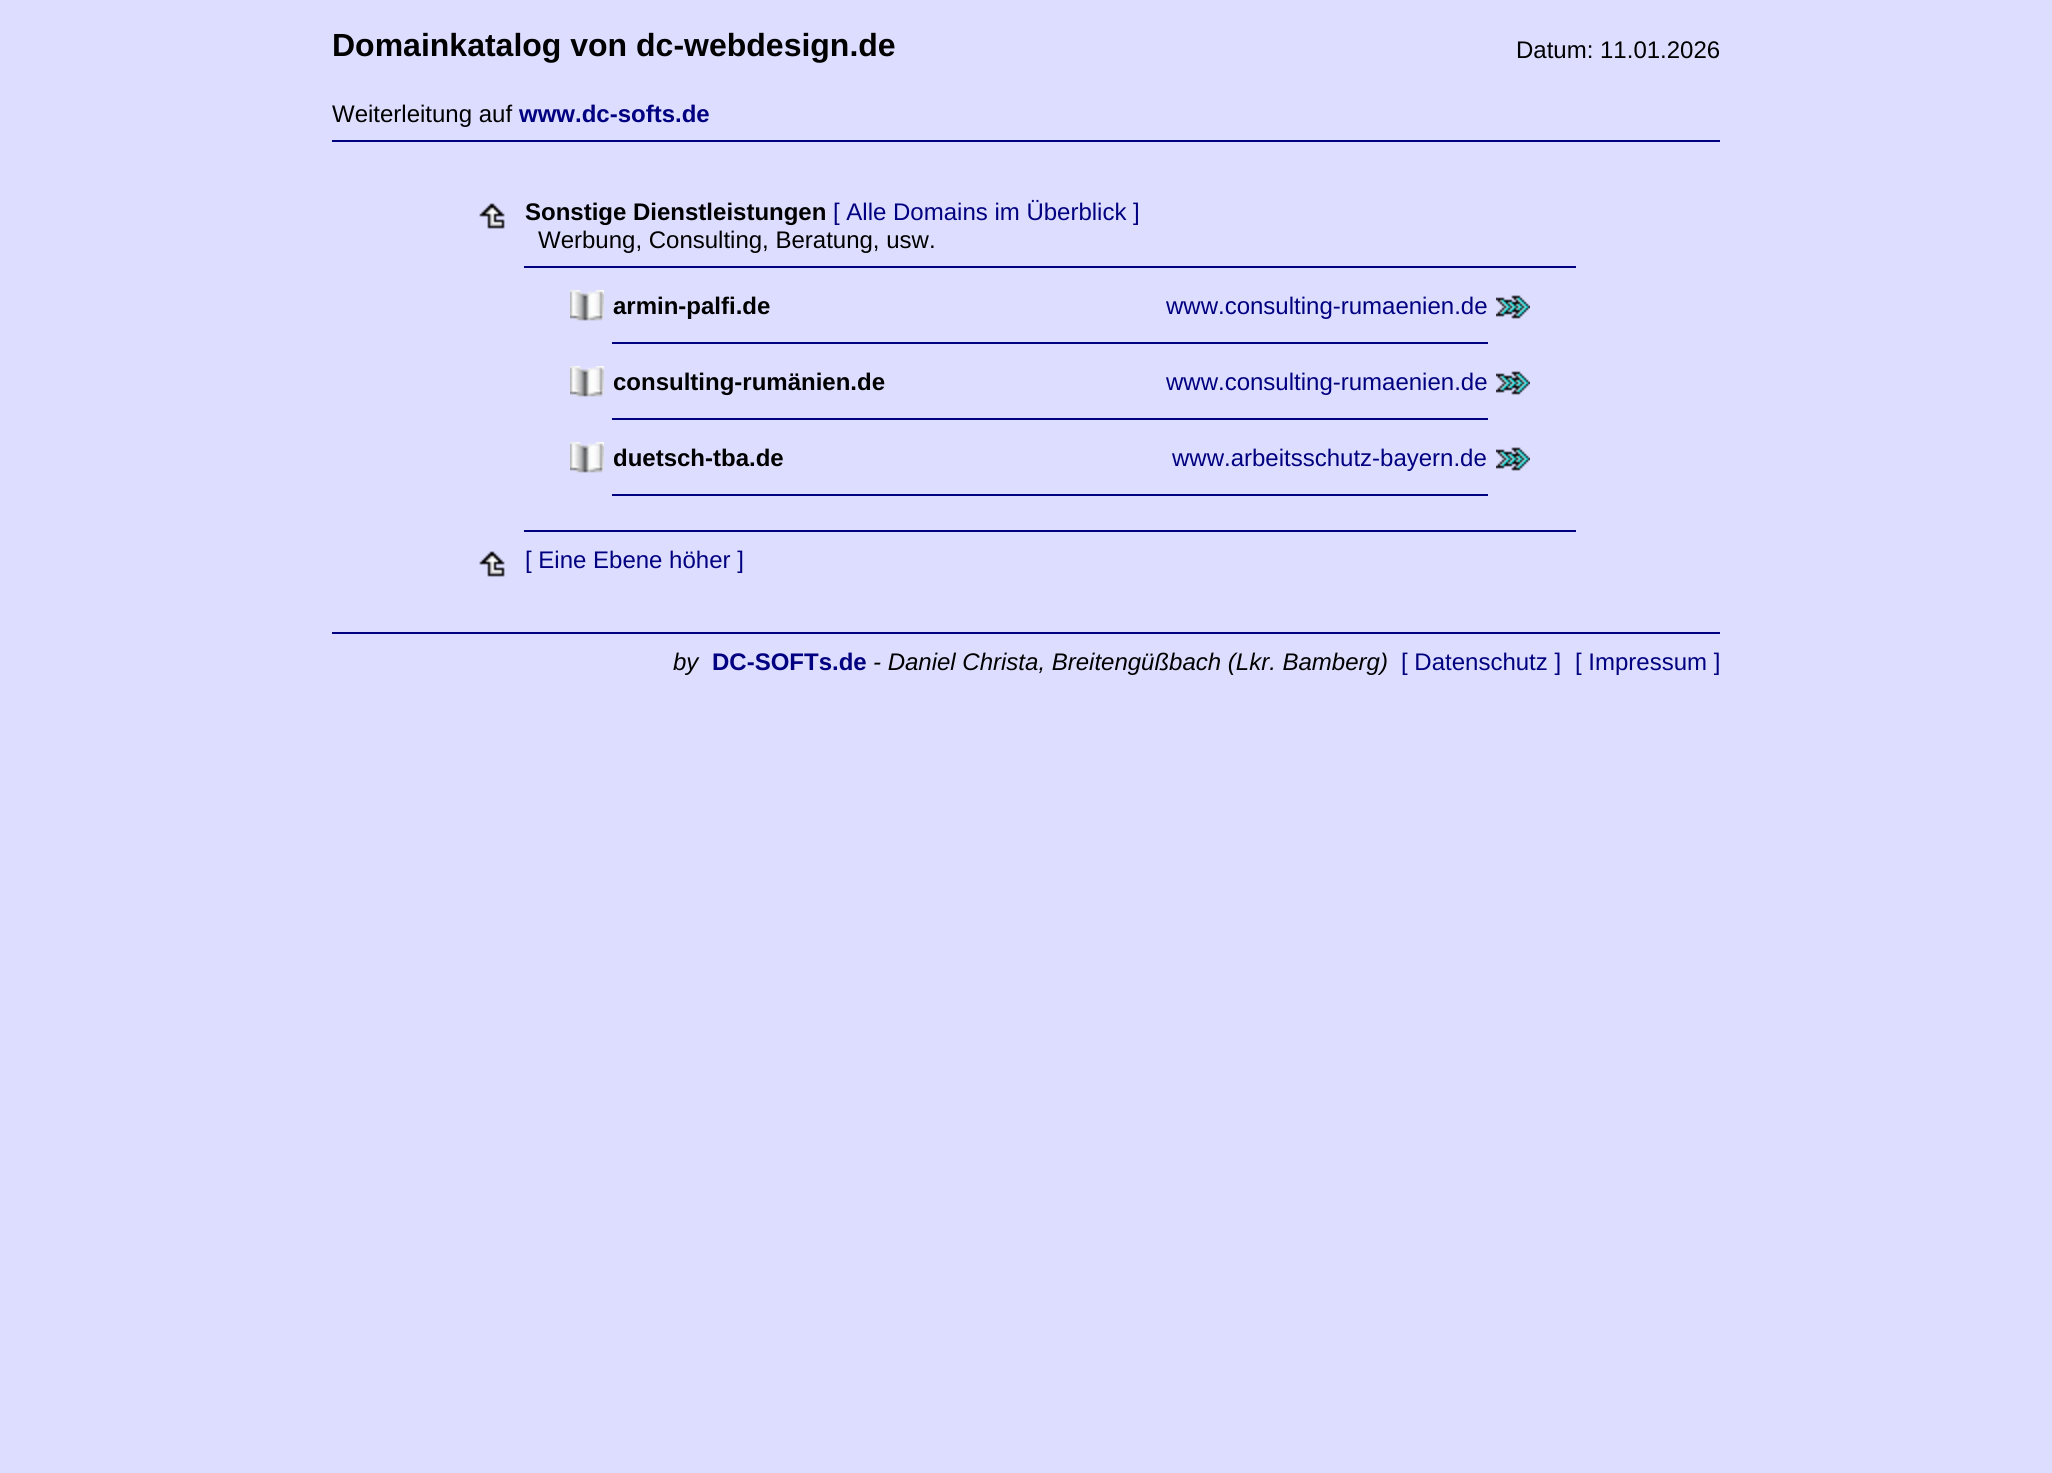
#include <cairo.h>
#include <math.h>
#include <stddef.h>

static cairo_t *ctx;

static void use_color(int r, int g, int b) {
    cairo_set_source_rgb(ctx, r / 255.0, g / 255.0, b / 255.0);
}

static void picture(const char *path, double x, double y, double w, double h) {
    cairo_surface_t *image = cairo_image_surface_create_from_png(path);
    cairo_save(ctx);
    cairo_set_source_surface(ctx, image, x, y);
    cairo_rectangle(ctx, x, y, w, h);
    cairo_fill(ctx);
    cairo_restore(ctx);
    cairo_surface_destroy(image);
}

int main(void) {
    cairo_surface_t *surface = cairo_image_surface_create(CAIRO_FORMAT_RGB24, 2052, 1473);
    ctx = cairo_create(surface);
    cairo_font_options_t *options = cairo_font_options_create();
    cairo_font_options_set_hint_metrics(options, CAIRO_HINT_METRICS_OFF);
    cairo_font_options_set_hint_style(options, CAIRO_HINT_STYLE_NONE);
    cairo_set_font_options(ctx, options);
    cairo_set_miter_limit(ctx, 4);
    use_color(221, 221, 255);
    cairo_paint(ctx);
    cairo_select_font_face(ctx, "Liberation Sans", CAIRO_FONT_SLANT_NORMAL, CAIRO_FONT_WEIGHT_BOLD);
    cairo_set_font_size(ctx, 32);
    use_color(0, 0, 0);
    cairo_move_to(ctx, 332, 56);
    cairo_show_text(ctx, "Domainkatalog von dc-webdesign.de");
    cairo_select_font_face(ctx, "Liberation Sans", CAIRO_FONT_SLANT_NORMAL, CAIRO_FONT_WEIGHT_NORMAL);
    cairo_set_font_size(ctx, 24);
    cairo_move_to(ctx, 1516, 58);
    cairo_show_text(ctx, "Datum: 11.01.2026");
    cairo_move_to(ctx, 332, 122);
    cairo_show_text(ctx, "Weiterleitung auf");
    cairo_select_font_face(ctx, "Liberation Sans", CAIRO_FONT_SLANT_NORMAL, CAIRO_FONT_WEIGHT_BOLD);
    use_color(0, 0, 128);
    cairo_move_to(ctx, 519, 122);
    cairo_show_text(ctx, "www.dc-softs.de");
    cairo_rectangle(ctx, 332, 140, 1388, 2);
    cairo_fill(ctx);
    picture("img1.png", 479, 203, 26, 26);
    use_color(0, 0, 0);
    cairo_move_to(ctx, 525, 220);
    cairo_show_text(ctx, "Sonstige Dienstleistungen");
    cairo_select_font_face(ctx, "Liberation Sans", CAIRO_FONT_SLANT_NORMAL, CAIRO_FONT_WEIGHT_NORMAL);
    use_color(0, 0, 128);
    cairo_move_to(ctx, 833, 220);
    cairo_show_text(ctx, "[ Alle Domains im Überblick ]");
    use_color(0, 0, 0);
    cairo_move_to(ctx, 538, 248);
    cairo_show_text(ctx, "Werbung, Consulting, Beratung, usw.");
    use_color(0, 0, 128);
    cairo_rectangle(ctx, 524, 266, 1052, 2);
    cairo_fill(ctx);
    picture("img2.png", 570, 290, 34, 31);
    cairo_select_font_face(ctx, "Liberation Sans", CAIRO_FONT_SLANT_NORMAL, CAIRO_FONT_WEIGHT_BOLD);
    use_color(0, 0, 0);
    cairo_move_to(ctx, 613, 314);
    cairo_show_text(ctx, "armin-palfi.de");
    cairo_select_font_face(ctx, "Liberation Sans", CAIRO_FONT_SLANT_NORMAL, CAIRO_FONT_WEIGHT_NORMAL);
    use_color(0, 0, 128);
    cairo_move_to(ctx, 1166, 314);
    cairo_show_text(ctx, "www.consulting-rumaenien.de");
    picture("img3.png", 1496, 295, 34, 24);
    cairo_rectangle(ctx, 612, 342, 876, 2);
    cairo_fill(ctx);
    picture("img2.png", 570, 366, 34, 31);
    cairo_select_font_face(ctx, "Liberation Sans", CAIRO_FONT_SLANT_NORMAL, CAIRO_FONT_WEIGHT_BOLD);
    use_color(0, 0, 0);
    cairo_move_to(ctx, 613, 390);
    cairo_show_text(ctx, "consulting-rumänien.de");
    cairo_select_font_face(ctx, "Liberation Sans", CAIRO_FONT_SLANT_NORMAL, CAIRO_FONT_WEIGHT_NORMAL);
    use_color(0, 0, 128);
    cairo_move_to(ctx, 1166, 390);
    cairo_show_text(ctx, "www.consulting-rumaenien.de");
    picture("img3.png", 1496, 371, 34, 24);
    cairo_rectangle(ctx, 612, 418, 876, 2);
    cairo_fill(ctx);
    picture("img2.png", 570, 442, 34, 31);
    cairo_select_font_face(ctx, "Liberation Sans", CAIRO_FONT_SLANT_NORMAL, CAIRO_FONT_WEIGHT_BOLD);
    use_color(0, 0, 0);
    cairo_move_to(ctx, 613, 466);
    cairo_show_text(ctx, "duetsch-tba.de");
    cairo_select_font_face(ctx, "Liberation Sans", CAIRO_FONT_SLANT_NORMAL, CAIRO_FONT_WEIGHT_NORMAL);
    use_color(0, 0, 128);
    cairo_move_to(ctx, 1172, 466);
    cairo_show_text(ctx, "www.arbeitsschutz-bayern.de");
    picture("img3.png", 1496, 447, 34, 24);
    cairo_rectangle(ctx, 612, 494, 876, 2);
    cairo_fill(ctx);
    picture("img1.png", 479, 551, 26, 26);
    cairo_rectangle(ctx, 524, 530, 1052, 2);
    cairo_fill(ctx);
    cairo_move_to(ctx, 525, 568);
    cairo_show_text(ctx, "[ Eine Ebene höher ]");
    cairo_rectangle(ctx, 332, 632, 1388, 2);
    cairo_fill(ctx);
    cairo_select_font_face(ctx, "Liberation Sans", CAIRO_FONT_SLANT_ITALIC, CAIRO_FONT_WEIGHT_NORMAL);
    use_color(0, 0, 0);
    cairo_move_to(ctx, 673, 670);
    cairo_show_text(ctx, "by");
    cairo_select_font_face(ctx, "Liberation Sans", CAIRO_FONT_SLANT_NORMAL, CAIRO_FONT_WEIGHT_BOLD);
    use_color(0, 0, 128);
    cairo_move_to(ctx, 712, 670);
    cairo_show_text(ctx, "DC-SOFTs.de");
    cairo_select_font_face(ctx, "Liberation Sans", CAIRO_FONT_SLANT_ITALIC, CAIRO_FONT_WEIGHT_NORMAL);
    use_color(0, 0, 0);
    cairo_move_to(ctx, 873, 670);
    cairo_show_text(ctx, "- Daniel Christa, Breitengüßbach (Lkr. Bamberg)");
    cairo_select_font_face(ctx, "Liberation Sans", CAIRO_FONT_SLANT_NORMAL, CAIRO_FONT_WEIGHT_NORMAL);
    use_color(0, 0, 128);
    cairo_move_to(ctx, 1401, 670);
    cairo_show_text(ctx, "[ Datenschutz ]");
    cairo_move_to(ctx, 1575, 670);
    cairo_show_text(ctx, "[ Impressum ]");
    cairo_surface_write_to_png(surface, "result.png");
    cairo_font_options_destroy(options);
    cairo_destroy(ctx);
    cairo_surface_destroy(surface);
    return 0;
}
